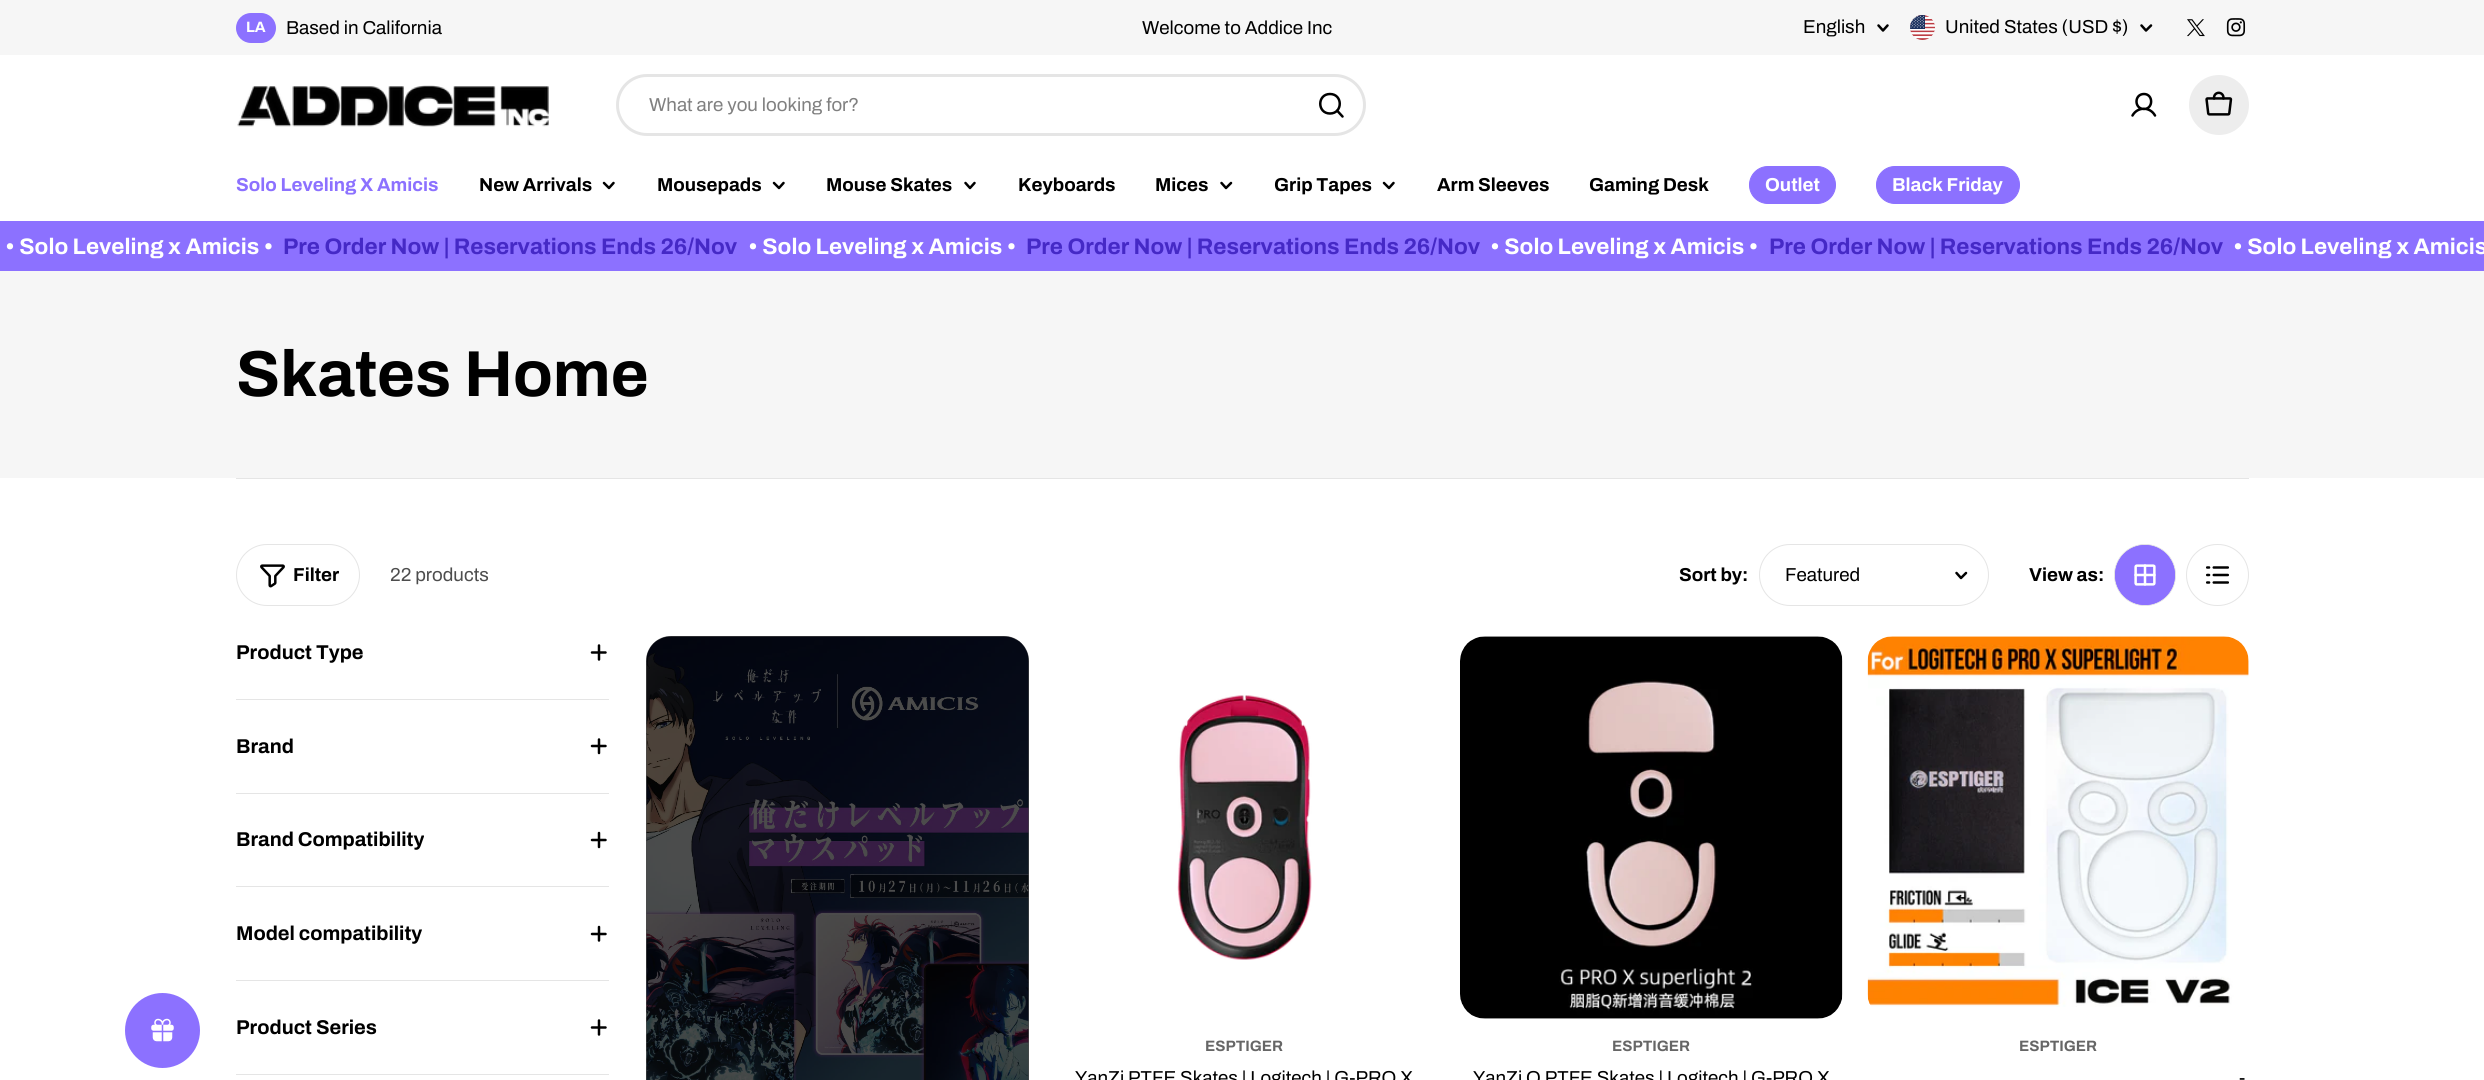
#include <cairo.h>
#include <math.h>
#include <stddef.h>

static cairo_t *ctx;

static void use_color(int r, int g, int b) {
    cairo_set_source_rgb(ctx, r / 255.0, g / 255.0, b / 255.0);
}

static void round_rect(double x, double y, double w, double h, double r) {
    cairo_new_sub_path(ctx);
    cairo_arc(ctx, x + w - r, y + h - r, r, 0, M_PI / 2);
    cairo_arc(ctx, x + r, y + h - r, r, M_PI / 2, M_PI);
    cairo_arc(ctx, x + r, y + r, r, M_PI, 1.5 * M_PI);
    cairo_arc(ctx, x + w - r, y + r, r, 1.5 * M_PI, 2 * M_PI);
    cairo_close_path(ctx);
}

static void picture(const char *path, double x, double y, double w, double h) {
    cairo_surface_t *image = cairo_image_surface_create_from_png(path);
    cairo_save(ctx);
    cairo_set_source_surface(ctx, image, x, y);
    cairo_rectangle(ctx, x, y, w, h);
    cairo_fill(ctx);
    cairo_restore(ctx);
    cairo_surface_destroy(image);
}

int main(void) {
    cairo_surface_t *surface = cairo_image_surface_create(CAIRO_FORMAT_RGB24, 2484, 1080);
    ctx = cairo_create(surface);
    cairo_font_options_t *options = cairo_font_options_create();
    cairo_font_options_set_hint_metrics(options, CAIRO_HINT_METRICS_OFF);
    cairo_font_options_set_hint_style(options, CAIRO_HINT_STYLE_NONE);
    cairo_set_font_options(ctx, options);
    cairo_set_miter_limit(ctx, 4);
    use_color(255, 255, 255);
    cairo_paint(ctx);
    use_color(246, 246, 246);
    cairo_rectangle(ctx, 0, 0, 2484, 55);
    cairo_fill(ctx);
    use_color(140, 113, 255);
    round_rect(236, 13, 40, 30, 15);
    cairo_fill(ctx);
    cairo_select_font_face(ctx, "Archivo", CAIRO_FONT_SLANT_NORMAL, CAIRO_FONT_WEIGHT_BOLD);
    cairo_set_font_size(ctx, 15);
    use_color(255, 255, 255);
    cairo_move_to(ctx, 246, 32);
    cairo_show_text(ctx, "LA");
    cairo_select_font_face(ctx, "Archivo", CAIRO_FONT_SLANT_NORMAL, CAIRO_FONT_WEIGHT_NORMAL);
    cairo_set_font_size(ctx, 18.75);
    use_color(0, 0, 0);
    cairo_move_to(ctx, 286, 34);
    cairo_show_text(ctx, "Based in California");
    cairo_move_to(ctx, 1142, 34);
    cairo_show_text(ctx, "Welcome to Addice Inc");
    cairo_move_to(ctx, 1803, 33);
    cairo_show_text(ctx, "English");
    cairo_new_path(ctx);
    cairo_move_to(ctx, 1887.5, 25.5);
    cairo_line_to(ctx, 1883, 30.5);
    cairo_line_to(ctx, 1878.5, 25.5);
    cairo_set_line_width(ctx, 2.5);
    cairo_set_line_cap(ctx, CAIRO_LINE_CAP_ROUND);
    cairo_set_line_join(ctx, CAIRO_LINE_JOIN_ROUND);
    cairo_stroke(ctx);
    picture("img1.png", 1910, 15, 25, 25);
    cairo_move_to(ctx, 1945, 33);
    cairo_show_text(ctx, "United States (USD $)");
    cairo_new_path(ctx);
    cairo_move_to(ctx, 2151, 25.5);
    cairo_line_to(ctx, 2146, 30.5);
    cairo_line_to(ctx, 2141.5, 25.5);
    cairo_stroke(ctx);
    picture("img2.png", 2187, 19, 18, 18);
    picture("img3.png", 2226, 18, 20, 19);
    picture("img4.png", 237, 85, 312, 42);
    round_rect(617.5, 75.5, 747, 59, 29.5);
    use_color(229, 229, 229);
    cairo_set_line_width(ctx, 3);
    cairo_set_line_cap(ctx, CAIRO_LINE_CAP_BUTT);
    cairo_set_line_join(ctx, CAIRO_LINE_JOIN_MITER);
    cairo_stroke(ctx);
    use_color(128, 128, 128);
    cairo_move_to(ctx, 649, 111);
    cairo_show_text(ctx, "What are you looking for?");
    cairo_new_path(ctx);
    cairo_move_to(ctx, 1330, 113.5);
    cairo_curve_to(ctx, 1343, 113.5, 1343, 94, 1330, 94);
    cairo_curve_to(ctx, 1317, 94, 1317, 113.5, 1330, 113.5);
    cairo_close_path(ctx);
    cairo_move_to(ctx, 1337, 110.5);
    cairo_line_to(ctx, 1342.5, 116.5);
    use_color(0, 0, 0);
    cairo_set_line_width(ctx, 2.5);
    cairo_set_line_cap(ctx, CAIRO_LINE_CAP_ROUND);
    cairo_set_line_join(ctx, CAIRO_LINE_JOIN_ROUND);
    cairo_stroke(ctx);
    cairo_new_path(ctx);
    cairo_move_to(ctx, 2144, 109);
    cairo_curve_to(ctx, 2153.5, 109, 2153.5, 94, 2144, 94);
    cairo_curve_to(ctx, 2134, 94, 2134, 109, 2144, 109);
    cairo_close_path(ctx);
    cairo_move_to(ctx, 2132.5, 115.5);
    cairo_curve_to(ctx, 2137.5, 106.5, 2150, 106.5, 2155, 115.5);
    cairo_stroke(ctx);
    use_color(237, 237, 237);
    cairo_arc(ctx, 2219, 105, 30, 0, 2 * M_PI);
    cairo_fill(ctx);
    picture("img5.png", 2205, 91, 28, 25);
    cairo_select_font_face(ctx, "Archivo", CAIRO_FONT_SLANT_NORMAL, CAIRO_FONT_WEIGHT_BOLD);
    use_color(140, 113, 255);
    cairo_move_to(ctx, 236, 191);
    cairo_show_text(ctx, "Solo Leveling X Amicis");
    use_color(0, 0, 0);
    cairo_move_to(ctx, 479, 191);
    cairo_show_text(ctx, "New Arrivals");
    cairo_new_path(ctx);
    cairo_move_to(ctx, 613.5, 183);
    cairo_line_to(ctx, 609, 188);
    cairo_line_to(ctx, 604, 183);
    cairo_stroke(ctx);
    cairo_move_to(ctx, 657, 191);
    cairo_show_text(ctx, "Mousepads");
    cairo_new_path(ctx);
    cairo_move_to(ctx, 783.5, 183);
    cairo_line_to(ctx, 779, 188);
    cairo_line_to(ctx, 774, 183);
    cairo_stroke(ctx);
    cairo_move_to(ctx, 826, 191);
    cairo_show_text(ctx, "Mouse Skates");
    cairo_new_path(ctx);
    cairo_move_to(ctx, 974.5, 183);
    cairo_line_to(ctx, 970, 188);
    cairo_line_to(ctx, 965.5, 183);
    cairo_stroke(ctx);
    cairo_move_to(ctx, 1018, 191);
    cairo_show_text(ctx, "Keyboards");
    cairo_move_to(ctx, 1155, 191);
    cairo_show_text(ctx, "Mices");
    cairo_new_path(ctx);
    cairo_move_to(ctx, 1231, 183);
    cairo_line_to(ctx, 1226, 188);
    cairo_line_to(ctx, 1221.5, 183);
    cairo_stroke(ctx);
    cairo_move_to(ctx, 1274, 191);
    cairo_show_text(ctx, "Grip Tapes");
    cairo_new_path(ctx);
    cairo_move_to(ctx, 1393.5, 183);
    cairo_line_to(ctx, 1389, 188);
    cairo_line_to(ctx, 1384, 183);
    cairo_stroke(ctx);
    cairo_move_to(ctx, 1437, 191);
    cairo_show_text(ctx, "Arm Sleeves");
    cairo_move_to(ctx, 1589, 191);
    cairo_show_text(ctx, "Gaming Desk");
    use_color(140, 113, 255);
    round_rect(1749.5, 166.5, 86, 37, 18.5);
    cairo_fill_preserve(ctx);
    cairo_set_line_width(ctx, 1);
    cairo_set_line_cap(ctx, CAIRO_LINE_CAP_BUTT);
    cairo_set_line_join(ctx, CAIRO_LINE_JOIN_MITER);
    cairo_stroke(ctx);
    use_color(255, 255, 255);
    cairo_move_to(ctx, 1765, 191);
    cairo_show_text(ctx, "Outlet");
    use_color(140, 113, 255);
    round_rect(1876.5, 166.5, 143, 37, 18.5);
    cairo_fill_preserve(ctx);
    cairo_stroke(ctx);
    use_color(255, 255, 255);
    cairo_move_to(ctx, 1892, 191);
    cairo_show_text(ctx, "Black Friday");
    use_color(140, 113, 255);
    cairo_rectangle(ctx, 0, 221, 2484, 50);
    cairo_fill(ctx);
    cairo_set_font_size(ctx, 22.5);
    use_color(255, 255, 255);
    cairo_move_to(ctx, 5, 254);
    cairo_show_text(ctx, "• Solo Leveling x Amicis •");
    use_color(69, 41, 198);
    cairo_move_to(ctx, 283, 254);
    cairo_show_text(ctx, "Pre Order Now | Reservations Ends 26/Nov");
    use_color(255, 255, 255);
    cairo_move_to(ctx, 748, 254);
    cairo_show_text(ctx, "• Solo Leveling x Amicis •");
    use_color(69, 41, 198);
    cairo_move_to(ctx, 1026, 254);
    cairo_show_text(ctx, "Pre Order Now | Reservations Ends 26/Nov");
    use_color(255, 255, 255);
    cairo_move_to(ctx, 1490, 254);
    cairo_show_text(ctx, "• Solo Leveling x Amicis •");
    use_color(69, 41, 198);
    cairo_move_to(ctx, 1769, 254);
    cairo_show_text(ctx, "Pre Order Now | Reservations Ends 26/Nov");
    use_color(255, 255, 255);
    cairo_move_to(ctx, 2233, 254);
    cairo_show_text(ctx, "• Solo Leveling x Amicis");
    use_color(246, 246, 246);
    cairo_rectangle(ctx, 0, 271, 2484, 207);
    cairo_fill(ctx);
    cairo_set_font_size(ctx, 65);
    use_color(0, 0, 0);
    cairo_move_to(ctx, 236, 396);
    cairo_show_text(ctx, "Skates Home");
    use_color(229, 229, 229);
    cairo_rectangle(ctx, 236, 478, 2013, 1);
    cairo_fill(ctx);
    round_rect(236.5, 544.5, 123, 61, 30.5);
    cairo_stroke(ctx);
    picture("img6.png", 260, 564, 25, 24);
    cairo_set_font_size(ctx, 18.75);
    use_color(0, 0, 0);
    cairo_move_to(ctx, 293, 581);
    cairo_show_text(ctx, "Filter");
    cairo_select_font_face(ctx, "Archivo", CAIRO_FONT_SLANT_NORMAL, CAIRO_FONT_WEIGHT_NORMAL);
    use_color(77, 77, 77);
    cairo_move_to(ctx, 390, 581);
    cairo_show_text(ctx, "22 products");
    cairo_select_font_face(ctx, "Archivo", CAIRO_FONT_SLANT_NORMAL, CAIRO_FONT_WEIGHT_BOLD);
    use_color(0, 0, 0);
    cairo_move_to(ctx, 1679, 581);
    cairo_show_text(ctx, "Sort by:");
    round_rect(1759.5, 544.5, 229, 61, 30.5);
    use_color(229, 229, 229);
    cairo_stroke(ctx);
    cairo_select_font_face(ctx, "Archivo", CAIRO_FONT_SLANT_NORMAL, CAIRO_FONT_WEIGHT_NORMAL);
    use_color(0, 0, 0);
    cairo_move_to(ctx, 1785, 581);
    cairo_show_text(ctx, "Featured");
    cairo_new_path(ctx);
    cairo_move_to(ctx, 1966, 573);
    cairo_line_to(ctx, 1961, 578);
    cairo_line_to(ctx, 1956.5, 573);
    cairo_set_line_width(ctx, 2.5);
    cairo_set_line_cap(ctx, CAIRO_LINE_CAP_ROUND);
    cairo_set_line_join(ctx, CAIRO_LINE_JOIN_ROUND);
    cairo_stroke(ctx);
    cairo_select_font_face(ctx, "Archivo", CAIRO_FONT_SLANT_NORMAL, CAIRO_FONT_WEIGHT_BOLD);
    cairo_move_to(ctx, 2029, 581);
    cairo_show_text(ctx, "View as:");
    use_color(140, 113, 255);
    cairo_new_path(ctx);
    cairo_arc(ctx, 2145, 575, 30.5, 0, 2 * M_PI);
    cairo_fill_preserve(ctx);
    use_color(229, 229, 229);
    cairo_set_line_width(ctx, 1);
    cairo_set_line_cap(ctx, CAIRO_LINE_CAP_BUTT);
    cairo_set_line_join(ctx, CAIRO_LINE_JOIN_MITER);
    cairo_stroke(ctx);
    cairo_save(ctx);
    round_rect(2115, 545, 60, 60, 30);
    cairo_clip(ctx);
    use_color(140, 113, 255);
    round_rect(2114, 544, 61, 62, 30.5);
    cairo_fill(ctx);
    cairo_restore(ctx);
    picture("img7.png", 2134, 564, 22, 22);
    round_rect(2186.5, 544.5, 62, 61, 30.5);
    cairo_stroke(ctx);
    picture("img8.png", 2206, 566, 23, 18);
    cairo_rectangle(ctx, 236, 699, 373, 1);
    cairo_fill(ctx);
    cairo_set_font_size(ctx, 20);
    use_color(0, 0, 0);
    cairo_move_to(ctx, 236, 659);
    cairo_show_text(ctx, "Product Type");
    cairo_new_path(ctx);
    cairo_move_to(ctx, 592, 652.5);
    cairo_line_to(ctx, 605.5, 652.5);
    cairo_move_to(ctx, 599, 645.5);
    cairo_line_to(ctx, 599, 659.5);
    cairo_set_line_width(ctx, 2.5);
    cairo_set_line_cap(ctx, CAIRO_LINE_CAP_ROUND);
    cairo_set_line_join(ctx, CAIRO_LINE_JOIN_ROUND);
    cairo_stroke(ctx);
    use_color(229, 229, 229);
    cairo_rectangle(ctx, 236, 793, 373, 1);
    cairo_fill(ctx);
    use_color(0, 0, 0);
    cairo_move_to(ctx, 236, 753);
    cairo_show_text(ctx, "Brand");
    cairo_new_path(ctx);
    cairo_move_to(ctx, 592, 746);
    cairo_line_to(ctx, 605.5, 746);
    cairo_move_to(ctx, 599, 739.5);
    cairo_line_to(ctx, 599, 753);
    cairo_stroke(ctx);
    use_color(229, 229, 229);
    cairo_rectangle(ctx, 236, 886, 373, 1);
    cairo_fill(ctx);
    use_color(0, 0, 0);
    cairo_move_to(ctx, 236, 846);
    cairo_show_text(ctx, "Brand Compatibility");
    cairo_new_path(ctx);
    cairo_move_to(ctx, 592, 840);
    cairo_line_to(ctx, 605.5, 840);
    cairo_move_to(ctx, 599, 833);
    cairo_line_to(ctx, 599, 847);
    cairo_stroke(ctx);
    use_color(229, 229, 229);
    cairo_rectangle(ctx, 236, 980, 373, 1);
    cairo_fill(ctx);
    use_color(0, 0, 0);
    cairo_move_to(ctx, 236, 940);
    cairo_show_text(ctx, "Model compatibility");
    cairo_new_path(ctx);
    cairo_move_to(ctx, 592, 934);
    cairo_line_to(ctx, 605.5, 934);
    cairo_move_to(ctx, 599, 927);
    cairo_line_to(ctx, 599, 940.5);
    cairo_stroke(ctx);
    use_color(229, 229, 229);
    cairo_rectangle(ctx, 236, 1074, 373, 1);
    cairo_fill(ctx);
    use_color(0, 0, 0);
    cairo_move_to(ctx, 236, 1034);
    cairo_show_text(ctx, "Product Series");
    cairo_new_path(ctx);
    cairo_move_to(ctx, 592, 1027.5);
    cairo_line_to(ctx, 605.5, 1027.5);
    cairo_move_to(ctx, 599, 1020.5);
    cairo_line_to(ctx, 599, 1034.5);
    cairo_stroke(ctx);
    picture("img9.png", 646, 636, 383, 444);
    cairo_set_source_rgba(ctx, 0, 0, 0, 0.7);
    round_rect(646, 636, 383, 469, 25);
    cairo_fill(ctx);
    picture("img10.png", 1177, 695, 135, 265);
    cairo_set_font_size(ctx, 15);
    use_color(102, 102, 102);
    cairo_move_to(ctx, 1205, 1051);
    cairo_show_text(ctx, "ESPTIGER");
    cairo_select_font_face(ctx, "Archivo", CAIRO_FONT_SLANT_NORMAL, CAIRO_FONT_WEIGHT_NORMAL);
    cairo_set_font_size(ctx, 18.75);
    use_color(0, 0, 0);
    cairo_move_to(ctx, 1075, 1084);
    cairo_show_text(ctx, "YanZi PTFE Skates | Logitech | G-PRO X");
    picture("img11.png", 1460, 636, 383, 383);
    cairo_select_font_face(ctx, "Archivo", CAIRO_FONT_SLANT_NORMAL, CAIRO_FONT_WEIGHT_BOLD);
    cairo_set_font_size(ctx, 15);
    use_color(102, 102, 102);
    cairo_move_to(ctx, 1612, 1051);
    cairo_show_text(ctx, "ESPTIGER");
    cairo_select_font_face(ctx, "Archivo", CAIRO_FONT_SLANT_NORMAL, CAIRO_FONT_WEIGHT_NORMAL);
    cairo_set_font_size(ctx, 18.75);
    use_color(0, 0, 0);
    cairo_move_to(ctx, 1473, 1084);
    cairo_show_text(ctx, "YanZi Q PTFE Skates | Logitech | G-PRO X");
    picture("img12.png", 1867, 636, 382, 371);
    cairo_select_font_face(ctx, "Archivo", CAIRO_FONT_SLANT_NORMAL, CAIRO_FONT_WEIGHT_BOLD);
    cairo_set_font_size(ctx, 15);
    use_color(102, 102, 102);
    cairo_move_to(ctx, 2019, 1051);
    cairo_show_text(ctx, "ESPTIGER");
    cairo_select_font_face(ctx, "Archivo", CAIRO_FONT_SLANT_NORMAL, CAIRO_FONT_WEIGHT_NORMAL);
    cairo_set_font_size(ctx, 18.75);
    use_color(0, 0, 0);
    cairo_move_to(ctx, 2239, 1084);
    cairo_show_text(ctx, "-");
    use_color(140, 113, 255);
    cairo_new_path(ctx);
    cairo_arc(ctx, 162.5, 1030.5, 37.5, 0, 2 * M_PI);
    cairo_fill(ctx);
    picture("img13.png", 151, 1018, 23, 24);
    cairo_surface_write_to_png(surface, "result.png");
    cairo_font_options_destroy(options);
    cairo_destroy(ctx);
    cairo_surface_destroy(surface);
    return 0;
}
